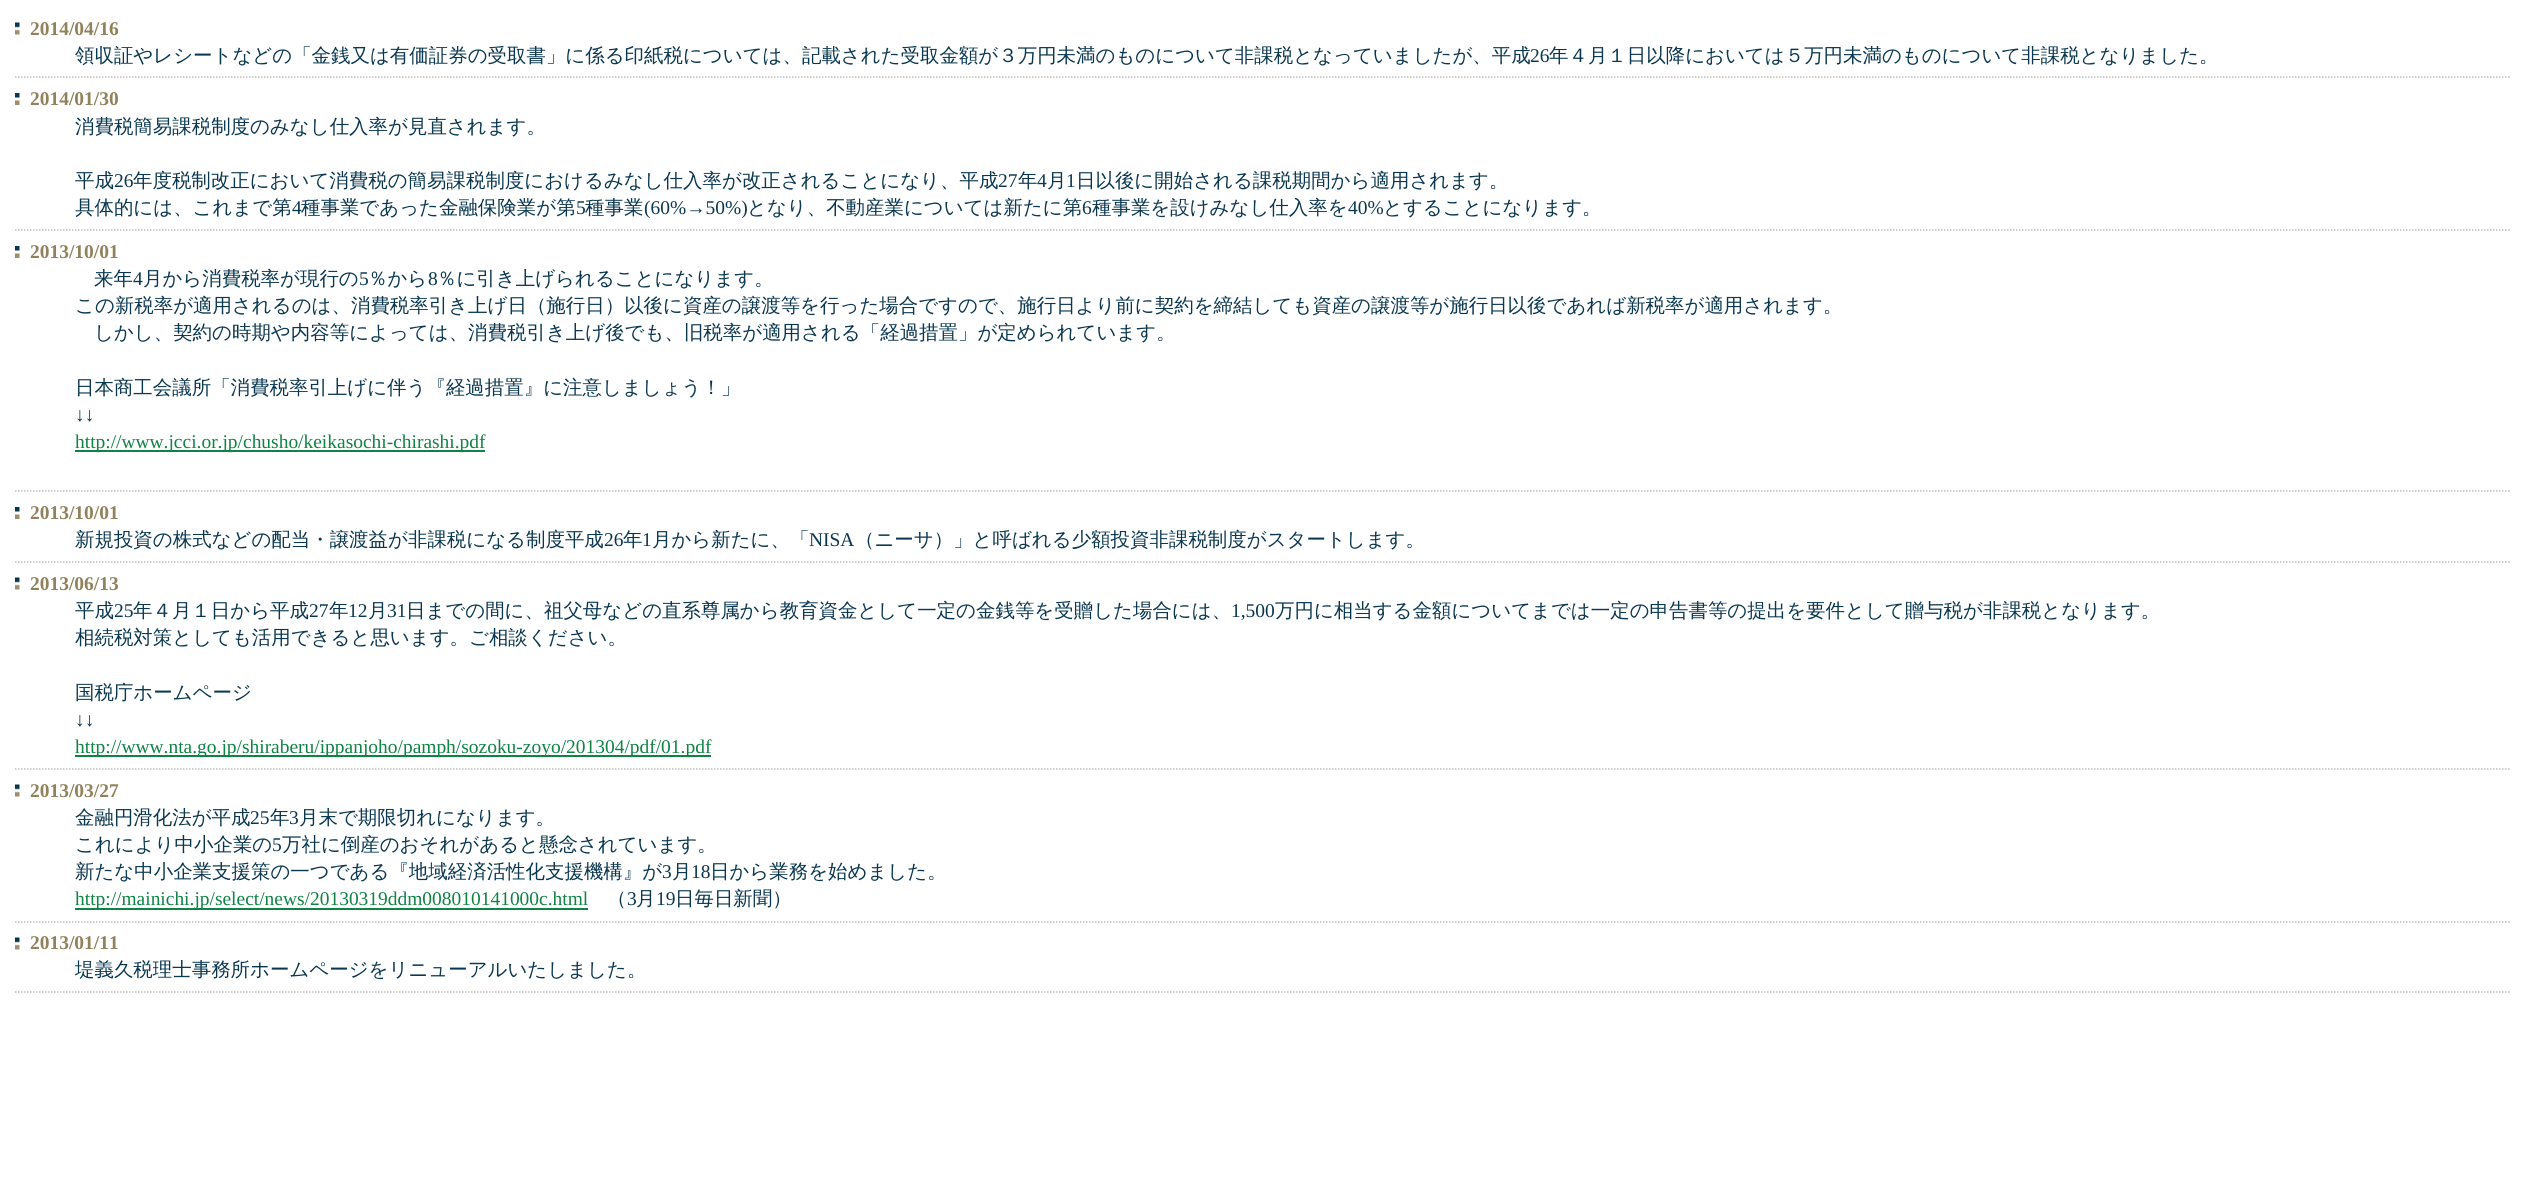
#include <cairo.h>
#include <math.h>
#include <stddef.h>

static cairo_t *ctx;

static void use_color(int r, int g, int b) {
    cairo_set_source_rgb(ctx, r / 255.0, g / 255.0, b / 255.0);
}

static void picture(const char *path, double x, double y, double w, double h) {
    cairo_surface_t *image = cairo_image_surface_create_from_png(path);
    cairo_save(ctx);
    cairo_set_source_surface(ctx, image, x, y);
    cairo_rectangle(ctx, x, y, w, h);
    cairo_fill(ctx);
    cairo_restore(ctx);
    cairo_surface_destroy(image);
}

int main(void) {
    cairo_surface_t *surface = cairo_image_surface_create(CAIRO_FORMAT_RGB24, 2526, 1179);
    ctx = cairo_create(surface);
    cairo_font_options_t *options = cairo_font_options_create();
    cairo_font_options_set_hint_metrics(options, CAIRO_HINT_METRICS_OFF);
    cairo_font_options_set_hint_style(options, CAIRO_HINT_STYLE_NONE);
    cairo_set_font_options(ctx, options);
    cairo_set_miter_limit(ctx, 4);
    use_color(255, 255, 255);
    cairo_paint(ctx);
    picture("img1.png", 15, 22, 5, 13);
    cairo_select_font_face(ctx, "Liberation Serif", CAIRO_FONT_SLANT_NORMAL, CAIRO_FONT_WEIGHT_BOLD);
    cairo_set_font_size(ctx, 19.45);
    use_color(145, 130, 92);
    cairo_move_to(ctx, 30, 35);
    cairo_show_text(ctx, "2014/04/16");
    cairo_new_path(ctx);
    cairo_move_to(ctx, 15, 77);
    cairo_line_to(ctx, 2511, 77);
    use_color(190, 188, 185);
    cairo_set_line_width(ctx, 1.5);
    cairo_set_dash(ctx, (double[]){1.5, 1.5}, 2, 0);
    cairo_stroke(ctx);
    cairo_select_font_face(ctx, "WenQuanYi Zen Hei Medium", CAIRO_FONT_SLANT_NORMAL, CAIRO_FONT_WEIGHT_NORMAL);
    use_color(9, 55, 80);
    cairo_move_to(ctx, 75, 62);
    cairo_show_text(ctx, "領収証やレシートなどの「金銭又は有価証券の受取書」に係る印紙税については、記載された受取金額が３万円未満のものについて非課税となっていましたが、平成");
    cairo_select_font_face(ctx, "Liberation Serif", CAIRO_FONT_SLANT_NORMAL, CAIRO_FONT_WEIGHT_NORMAL);
    cairo_move_to(ctx, 1530, 62);
    cairo_show_text(ctx, "26");
    cairo_select_font_face(ctx, "WenQuanYi Zen Hei Medium", CAIRO_FONT_SLANT_NORMAL, CAIRO_FONT_WEIGHT_NORMAL);
    cairo_move_to(ctx, 1549, 62);
    cairo_show_text(ctx, "年４月１日以降においては５万円未満のものについて非課税となりました。");
    picture("img2.png", 15, 93, 5, 12);
    cairo_select_font_face(ctx, "Liberation Serif", CAIRO_FONT_SLANT_NORMAL, CAIRO_FONT_WEIGHT_BOLD);
    use_color(145, 130, 92);
    cairo_move_to(ctx, 30, 105);
    cairo_show_text(ctx, "2014/01/30");
    cairo_new_path(ctx);
    cairo_move_to(ctx, 15, 230);
    cairo_line_to(ctx, 2511, 230);
    use_color(190, 188, 185);
    cairo_stroke(ctx);
    cairo_select_font_face(ctx, "WenQuanYi Zen Hei Medium", CAIRO_FONT_SLANT_NORMAL, CAIRO_FONT_WEIGHT_NORMAL);
    use_color(9, 55, 80);
    cairo_move_to(ctx, 75, 133);
    cairo_show_text(ctx, "消費税簡易課税制度のみなし仕入率が見直されます。");
    cairo_move_to(ctx, 75, 187);
    cairo_show_text(ctx, "平成");
    cairo_select_font_face(ctx, "Liberation Serif", CAIRO_FONT_SLANT_NORMAL, CAIRO_FONT_WEIGHT_NORMAL);
    cairo_move_to(ctx, 114, 187);
    cairo_show_text(ctx, "26");
    cairo_select_font_face(ctx, "WenQuanYi Zen Hei Medium", CAIRO_FONT_SLANT_NORMAL, CAIRO_FONT_WEIGHT_NORMAL);
    cairo_move_to(ctx, 133, 187);
    cairo_show_text(ctx, "年度税制改正において消費税の簡易課税制度におけるみなし仕入率が改正されることになり、平成");
    cairo_select_font_face(ctx, "Liberation Serif", CAIRO_FONT_SLANT_NORMAL, CAIRO_FONT_WEIGHT_NORMAL);
    cairo_move_to(ctx, 998, 187);
    cairo_show_text(ctx, "27");
    cairo_select_font_face(ctx, "WenQuanYi Zen Hei Medium", CAIRO_FONT_SLANT_NORMAL, CAIRO_FONT_WEIGHT_NORMAL);
    cairo_move_to(ctx, 1018, 187);
    cairo_show_text(ctx, "年");
    cairo_select_font_face(ctx, "Liberation Serif", CAIRO_FONT_SLANT_NORMAL, CAIRO_FONT_WEIGHT_NORMAL);
    cairo_move_to(ctx, 1037, 187);
    cairo_show_text(ctx, "4");
    cairo_select_font_face(ctx, "WenQuanYi Zen Hei Medium", CAIRO_FONT_SLANT_NORMAL, CAIRO_FONT_WEIGHT_NORMAL);
    cairo_move_to(ctx, 1047, 187);
    cairo_show_text(ctx, "月");
    cairo_select_font_face(ctx, "Liberation Serif", CAIRO_FONT_SLANT_NORMAL, CAIRO_FONT_WEIGHT_NORMAL);
    cairo_move_to(ctx, 1066, 187);
    cairo_show_text(ctx, "1");
    cairo_select_font_face(ctx, "WenQuanYi Zen Hei Medium", CAIRO_FONT_SLANT_NORMAL, CAIRO_FONT_WEIGHT_NORMAL);
    cairo_move_to(ctx, 1076, 187);
    cairo_show_text(ctx, "日以後に開始される課税期間から適用されます。");
    cairo_move_to(ctx, 75, 214);
    cairo_show_text(ctx, "具体的には、これまで第");
    cairo_select_font_face(ctx, "Liberation Serif", CAIRO_FONT_SLANT_NORMAL, CAIRO_FONT_WEIGHT_NORMAL);
    cairo_move_to(ctx, 292, 214);
    cairo_show_text(ctx, "4");
    cairo_select_font_face(ctx, "WenQuanYi Zen Hei Medium", CAIRO_FONT_SLANT_NORMAL, CAIRO_FONT_WEIGHT_NORMAL);
    cairo_move_to(ctx, 301, 214);
    cairo_show_text(ctx, "種事業であった金融保険業が第");
    cairo_select_font_face(ctx, "Liberation Serif", CAIRO_FONT_SLANT_NORMAL, CAIRO_FONT_WEIGHT_NORMAL);
    cairo_move_to(ctx, 576, 214);
    cairo_show_text(ctx, "5");
    cairo_select_font_face(ctx, "WenQuanYi Zen Hei Medium", CAIRO_FONT_SLANT_NORMAL, CAIRO_FONT_WEIGHT_NORMAL);
    cairo_move_to(ctx, 585, 214);
    cairo_show_text(ctx, "種事業");
    cairo_select_font_face(ctx, "Liberation Serif", CAIRO_FONT_SLANT_NORMAL, CAIRO_FONT_WEIGHT_NORMAL);
    cairo_move_to(ctx, 644, 214);
    cairo_show_text(ctx, "(60%→50%)");
    cairo_select_font_face(ctx, "WenQuanYi Zen Hei Medium", CAIRO_FONT_SLANT_NORMAL, CAIRO_FONT_WEIGHT_NORMAL);
    cairo_move_to(ctx, 747, 214);
    cairo_show_text(ctx, "となり、不動産業については新たに第");
    cairo_select_font_face(ctx, "Liberation Serif", CAIRO_FONT_SLANT_NORMAL, CAIRO_FONT_WEIGHT_NORMAL);
    cairo_move_to(ctx, 1082, 214);
    cairo_show_text(ctx, "6");
    cairo_select_font_face(ctx, "WenQuanYi Zen Hei Medium", CAIRO_FONT_SLANT_NORMAL, CAIRO_FONT_WEIGHT_NORMAL);
    cairo_move_to(ctx, 1092, 214);
    cairo_show_text(ctx, "種事業を設けみなし仕入率を");
    cairo_select_font_face(ctx, "Liberation Serif", CAIRO_FONT_SLANT_NORMAL, CAIRO_FONT_WEIGHT_NORMAL);
    cairo_move_to(ctx, 1348, 214);
    cairo_show_text(ctx, "40%");
    cairo_select_font_face(ctx, "WenQuanYi Zen Hei Medium", CAIRO_FONT_SLANT_NORMAL, CAIRO_FONT_WEIGHT_NORMAL);
    cairo_move_to(ctx, 1383, 214);
    cairo_show_text(ctx, "とすることになります。");
    picture("img2.png", 15, 246, 5, 12);
    cairo_select_font_face(ctx, "Liberation Serif", CAIRO_FONT_SLANT_NORMAL, CAIRO_FONT_WEIGHT_BOLD);
    use_color(145, 130, 92);
    cairo_move_to(ctx, 30, 258);
    cairo_show_text(ctx, "2013/10/01");
    cairo_new_path(ctx);
    cairo_move_to(ctx, 15, 491);
    cairo_line_to(ctx, 2511, 491);
    use_color(190, 188, 185);
    cairo_stroke(ctx);
    cairo_select_font_face(ctx, "WenQuanYi Zen Hei Medium", CAIRO_FONT_SLANT_NORMAL, CAIRO_FONT_WEIGHT_NORMAL);
    use_color(9, 55, 80);
    cairo_move_to(ctx, 94, 285);
    cairo_show_text(ctx, "来年");
    cairo_select_font_face(ctx, "Liberation Serif", CAIRO_FONT_SLANT_NORMAL, CAIRO_FONT_WEIGHT_NORMAL);
    cairo_move_to(ctx, 133, 285);
    cairo_show_text(ctx, "4");
    cairo_select_font_face(ctx, "WenQuanYi Zen Hei Medium", CAIRO_FONT_SLANT_NORMAL, CAIRO_FONT_WEIGHT_NORMAL);
    cairo_move_to(ctx, 143, 285);
    cairo_show_text(ctx, "月から消費税率が現行の");
    cairo_select_font_face(ctx, "Liberation Serif", CAIRO_FONT_SLANT_NORMAL, CAIRO_FONT_WEIGHT_NORMAL);
    cairo_move_to(ctx, 359, 285);
    cairo_show_text(ctx, "5");
    cairo_select_font_face(ctx, "WenQuanYi Zen Hei Medium", CAIRO_FONT_SLANT_NORMAL, CAIRO_FONT_WEIGHT_NORMAL);
    cairo_move_to(ctx, 368, 285);
    cairo_show_text(ctx, "％から");
    cairo_select_font_face(ctx, "Liberation Serif", CAIRO_FONT_SLANT_NORMAL, CAIRO_FONT_WEIGHT_NORMAL);
    cairo_move_to(ctx, 428, 285);
    cairo_show_text(ctx, "8");
    cairo_select_font_face(ctx, "WenQuanYi Zen Hei Medium", CAIRO_FONT_SLANT_NORMAL, CAIRO_FONT_WEIGHT_NORMAL);
    cairo_move_to(ctx, 437, 285);
    cairo_show_text(ctx, "％に引き上げられることになります。");
    cairo_move_to(ctx, 75, 312);
    cairo_show_text(ctx, "この新税率が適用されるのは、消費税率引き上げ日（施行日）以後に資産の譲渡等を行った場合ですので、施行日より前に契約を締結しても資産の譲渡等が施行日以後であれば新税率が適用されます。");
    cairo_move_to(ctx, 94, 339);
    cairo_show_text(ctx, "しかし、契約の時期や内容等によっては、消費税引き上げ後でも、旧税率が適用される「経過措置」が定められています。");
    cairo_move_to(ctx, 75, 394);
    cairo_show_text(ctx, "日本商工会議所「消費税率引上げに伴う『経過措置』に注意しましょう！」");
    cairo_select_font_face(ctx, "Liberation Serif", CAIRO_FONT_SLANT_NORMAL, CAIRO_FONT_WEIGHT_NORMAL);
    cairo_move_to(ctx, 75, 421);
    cairo_show_text(ctx, "↓↓");
    use_color(15, 131, 68);
    cairo_rectangle(ctx, 75, 450, 410, 2);
    cairo_fill(ctx);
    cairo_move_to(ctx, 75, 448);
    cairo_show_text(ctx, "http://www.jcci.or.jp/chusho/keikasochi-chirashi.pdf");
    picture("img2.png", 15, 507, 5, 12);
    cairo_select_font_face(ctx, "Liberation Serif", CAIRO_FONT_SLANT_NORMAL, CAIRO_FONT_WEIGHT_BOLD);
    use_color(145, 130, 92);
    cairo_move_to(ctx, 30, 519);
    cairo_show_text(ctx, "2013/10/01");
    cairo_new_path(ctx);
    cairo_move_to(ctx, 15, 562);
    cairo_line_to(ctx, 2511, 562);
    use_color(190, 188, 185);
    cairo_stroke(ctx);
    cairo_select_font_face(ctx, "WenQuanYi Zen Hei Medium", CAIRO_FONT_SLANT_NORMAL, CAIRO_FONT_WEIGHT_NORMAL);
    use_color(9, 55, 80);
    cairo_move_to(ctx, 75, 546);
    cairo_show_text(ctx, "新規投資の株式などの配当・譲渡益が非課税になる制度平成");
    cairo_select_font_face(ctx, "Liberation Serif", CAIRO_FONT_SLANT_NORMAL, CAIRO_FONT_WEIGHT_NORMAL);
    cairo_move_to(ctx, 604, 546);
    cairo_show_text(ctx, "26");
    cairo_select_font_face(ctx, "WenQuanYi Zen Hei Medium", CAIRO_FONT_SLANT_NORMAL, CAIRO_FONT_WEIGHT_NORMAL);
    cairo_move_to(ctx, 623, 546);
    cairo_show_text(ctx, "年");
    cairo_select_font_face(ctx, "Liberation Serif", CAIRO_FONT_SLANT_NORMAL, CAIRO_FONT_WEIGHT_NORMAL);
    cairo_move_to(ctx, 642, 546);
    cairo_show_text(ctx, "1");
    cairo_select_font_face(ctx, "WenQuanYi Zen Hei Medium", CAIRO_FONT_SLANT_NORMAL, CAIRO_FONT_WEIGHT_NORMAL);
    cairo_move_to(ctx, 652, 546);
    cairo_show_text(ctx, "月から新たに、「");
    cairo_select_font_face(ctx, "Liberation Serif", CAIRO_FONT_SLANT_NORMAL, CAIRO_FONT_WEIGHT_NORMAL);
    cairo_move_to(ctx, 809, 546);
    cairo_show_text(ctx, "NISA");
    cairo_select_font_face(ctx, "WenQuanYi Zen Hei Medium", CAIRO_FONT_SLANT_NORMAL, CAIRO_FONT_WEIGHT_NORMAL);
    cairo_move_to(ctx, 855, 546);
    cairo_show_text(ctx, "（ニーサ）」と呼ばれる少額投資非課税制度がスタートします。");
    picture("img1.png", 15, 577, 5, 13);
    cairo_select_font_face(ctx, "Liberation Serif", CAIRO_FONT_SLANT_NORMAL, CAIRO_FONT_WEIGHT_BOLD);
    use_color(145, 130, 92);
    cairo_move_to(ctx, 30, 590);
    cairo_show_text(ctx, "2013/06/13");
    cairo_new_path(ctx);
    cairo_move_to(ctx, 15, 769);
    cairo_line_to(ctx, 2511, 769);
    use_color(190, 188, 185);
    cairo_stroke(ctx);
    cairo_select_font_face(ctx, "WenQuanYi Zen Hei Medium", CAIRO_FONT_SLANT_NORMAL, CAIRO_FONT_WEIGHT_NORMAL);
    use_color(9, 55, 80);
    cairo_move_to(ctx, 75, 617);
    cairo_show_text(ctx, "平成");
    cairo_select_font_face(ctx, "Liberation Serif", CAIRO_FONT_SLANT_NORMAL, CAIRO_FONT_WEIGHT_NORMAL);
    cairo_move_to(ctx, 114, 617);
    cairo_show_text(ctx, "25");
    cairo_select_font_face(ctx, "WenQuanYi Zen Hei Medium", CAIRO_FONT_SLANT_NORMAL, CAIRO_FONT_WEIGHT_NORMAL);
    cairo_move_to(ctx, 133, 617);
    cairo_show_text(ctx, "年４月１日から平成");
    cairo_select_font_face(ctx, "Liberation Serif", CAIRO_FONT_SLANT_NORMAL, CAIRO_FONT_WEIGHT_NORMAL);
    cairo_move_to(ctx, 309, 617);
    cairo_show_text(ctx, "27");
    cairo_select_font_face(ctx, "WenQuanYi Zen Hei Medium", CAIRO_FONT_SLANT_NORMAL, CAIRO_FONT_WEIGHT_NORMAL);
    cairo_move_to(ctx, 329, 617);
    cairo_show_text(ctx, "年");
    cairo_select_font_face(ctx, "Liberation Serif", CAIRO_FONT_SLANT_NORMAL, CAIRO_FONT_WEIGHT_NORMAL);
    cairo_move_to(ctx, 348, 617);
    cairo_show_text(ctx, "12");
    cairo_select_font_face(ctx, "WenQuanYi Zen Hei Medium", CAIRO_FONT_SLANT_NORMAL, CAIRO_FONT_WEIGHT_NORMAL);
    cairo_move_to(ctx, 368, 617);
    cairo_show_text(ctx, "月");
    cairo_select_font_face(ctx, "Liberation Serif", CAIRO_FONT_SLANT_NORMAL, CAIRO_FONT_WEIGHT_NORMAL);
    cairo_move_to(ctx, 387, 617);
    cairo_show_text(ctx, "31");
    cairo_select_font_face(ctx, "WenQuanYi Zen Hei Medium", CAIRO_FONT_SLANT_NORMAL, CAIRO_FONT_WEIGHT_NORMAL);
    cairo_move_to(ctx, 406, 617);
    cairo_show_text(ctx, "日までの間に、祖父母などの直系尊属から教育資金として一定の金銭等を受贈した場合には、");
    cairo_select_font_face(ctx, "Liberation Serif", CAIRO_FONT_SLANT_NORMAL, CAIRO_FONT_WEIGHT_NORMAL);
    cairo_move_to(ctx, 1231, 617);
    cairo_show_text(ctx, "1,500");
    cairo_select_font_face(ctx, "WenQuanYi Zen Hei Medium", CAIRO_FONT_SLANT_NORMAL, CAIRO_FONT_WEIGHT_NORMAL);
    cairo_move_to(ctx, 1275, 617);
    cairo_show_text(ctx, "万円に相当する金額についてまでは一定の申告書等の提出を要件として贈与税が非課税となります。");
    cairo_move_to(ctx, 75, 644);
    cairo_show_text(ctx, "相続税対策としても活用できると思います。ご相談ください。");
    cairo_move_to(ctx, 75, 699);
    cairo_show_text(ctx, "国税庁ホームページ");
    cairo_select_font_face(ctx, "Liberation Serif", CAIRO_FONT_SLANT_NORMAL, CAIRO_FONT_WEIGHT_NORMAL);
    cairo_move_to(ctx, 75, 726);
    cairo_show_text(ctx, "↓↓");
    use_color(15, 131, 68);
    cairo_rectangle(ctx, 75, 755, 636, 2);
    cairo_fill(ctx);
    cairo_move_to(ctx, 75, 753);
    cairo_show_text(ctx, "http://www.nta.go.jp/shiraberu/ippanjoho/pamph/sozoku-zoyo/201304/pdf/01.pdf");
    picture("img1.png", 15, 784, 5, 13);
    cairo_select_font_face(ctx, "Liberation Serif", CAIRO_FONT_SLANT_NORMAL, CAIRO_FONT_WEIGHT_BOLD);
    use_color(145, 130, 92);
    cairo_move_to(ctx, 30, 797);
    cairo_show_text(ctx, "2013/03/27");
    cairo_new_path(ctx);
    cairo_move_to(ctx, 15, 922);
    cairo_line_to(ctx, 2511, 922);
    use_color(190, 188, 185);
    cairo_stroke(ctx);
    cairo_select_font_face(ctx, "WenQuanYi Zen Hei Medium", CAIRO_FONT_SLANT_NORMAL, CAIRO_FONT_WEIGHT_NORMAL);
    use_color(9, 55, 80);
    cairo_move_to(ctx, 75, 824);
    cairo_show_text(ctx, "金融円滑化法が平成");
    cairo_select_font_face(ctx, "Liberation Serif", CAIRO_FONT_SLANT_NORMAL, CAIRO_FONT_WEIGHT_NORMAL);
    cairo_move_to(ctx, 250, 824);
    cairo_show_text(ctx, "25");
    cairo_select_font_face(ctx, "WenQuanYi Zen Hei Medium", CAIRO_FONT_SLANT_NORMAL, CAIRO_FONT_WEIGHT_NORMAL);
    cairo_move_to(ctx, 270, 824);
    cairo_show_text(ctx, "年");
    cairo_select_font_face(ctx, "Liberation Serif", CAIRO_FONT_SLANT_NORMAL, CAIRO_FONT_WEIGHT_NORMAL);
    cairo_move_to(ctx, 289, 824);
    cairo_show_text(ctx, "3");
    cairo_select_font_face(ctx, "WenQuanYi Zen Hei Medium", CAIRO_FONT_SLANT_NORMAL, CAIRO_FONT_WEIGHT_NORMAL);
    cairo_move_to(ctx, 299, 824);
    cairo_show_text(ctx, "月末で期限切れになります。");
    cairo_move_to(ctx, 75, 851);
    cairo_show_text(ctx, "これにより中小企業の");
    cairo_select_font_face(ctx, "Liberation Serif", CAIRO_FONT_SLANT_NORMAL, CAIRO_FONT_WEIGHT_NORMAL);
    cairo_move_to(ctx, 272, 851);
    cairo_show_text(ctx, "5");
    cairo_select_font_face(ctx, "WenQuanYi Zen Hei Medium", CAIRO_FONT_SLANT_NORMAL, CAIRO_FONT_WEIGHT_NORMAL);
    cairo_move_to(ctx, 282, 851);
    cairo_show_text(ctx, "万社に倒産のおそれがあると懸念されています。");
    cairo_move_to(ctx, 75, 878);
    cairo_show_text(ctx, "新たな中小企業支援策の一つである『地域経済活性化支援機構』が");
    cairo_select_font_face(ctx, "Liberation Serif", CAIRO_FONT_SLANT_NORMAL, CAIRO_FONT_WEIGHT_NORMAL);
    cairo_move_to(ctx, 662, 878);
    cairo_show_text(ctx, "3");
    cairo_select_font_face(ctx, "WenQuanYi Zen Hei Medium", CAIRO_FONT_SLANT_NORMAL, CAIRO_FONT_WEIGHT_NORMAL);
    cairo_move_to(ctx, 672, 878);
    cairo_show_text(ctx, "月");
    cairo_select_font_face(ctx, "Liberation Serif", CAIRO_FONT_SLANT_NORMAL, CAIRO_FONT_WEIGHT_NORMAL);
    cairo_move_to(ctx, 691, 878);
    cairo_show_text(ctx, "18");
    cairo_select_font_face(ctx, "WenQuanYi Zen Hei Medium", CAIRO_FONT_SLANT_NORMAL, CAIRO_FONT_WEIGHT_NORMAL);
    cairo_move_to(ctx, 710, 878);
    cairo_show_text(ctx, "日から業務を始めました。");
    use_color(15, 131, 68);
    cairo_rectangle(ctx, 75, 908, 513, 2);
    cairo_fill(ctx);
    cairo_select_font_face(ctx, "Liberation Serif", CAIRO_FONT_SLANT_NORMAL, CAIRO_FONT_WEIGHT_NORMAL);
    cairo_move_to(ctx, 75, 905);
    cairo_show_text(ctx, "http://mainichi.jp/select/news/20130319ddm008010141000c.html");
    cairo_select_font_face(ctx, "WenQuanYi Zen Hei Medium", CAIRO_FONT_SLANT_NORMAL, CAIRO_FONT_WEIGHT_NORMAL);
    use_color(9, 55, 80);
    cairo_move_to(ctx, 607, 905);
    cairo_show_text(ctx, "（");
    cairo_select_font_face(ctx, "Liberation Serif", CAIRO_FONT_SLANT_NORMAL, CAIRO_FONT_WEIGHT_NORMAL);
    cairo_move_to(ctx, 627, 905);
    cairo_show_text(ctx, "3");
    cairo_select_font_face(ctx, "WenQuanYi Zen Hei Medium", CAIRO_FONT_SLANT_NORMAL, CAIRO_FONT_WEIGHT_NORMAL);
    cairo_move_to(ctx, 636, 905);
    cairo_show_text(ctx, "月");
    cairo_select_font_face(ctx, "Liberation Serif", CAIRO_FONT_SLANT_NORMAL, CAIRO_FONT_WEIGHT_NORMAL);
    cairo_move_to(ctx, 656, 905);
    cairo_show_text(ctx, "19");
    cairo_select_font_face(ctx, "WenQuanYi Zen Hei Medium", CAIRO_FONT_SLANT_NORMAL, CAIRO_FONT_WEIGHT_NORMAL);
    cairo_move_to(ctx, 675, 905);
    cairo_show_text(ctx, "日毎日新聞）");
    picture("img1.png", 15, 937, 5, 13);
    cairo_select_font_face(ctx, "Liberation Serif", CAIRO_FONT_SLANT_NORMAL, CAIRO_FONT_WEIGHT_BOLD);
    use_color(145, 130, 92);
    cairo_move_to(ctx, 30, 949);
    cairo_show_text(ctx, "2013/01/11");
    cairo_new_path(ctx);
    cairo_move_to(ctx, 15, 992);
    cairo_line_to(ctx, 2511, 992);
    use_color(190, 188, 185);
    cairo_stroke(ctx);
    cairo_select_font_face(ctx, "WenQuanYi Zen Hei Medium", CAIRO_FONT_SLANT_NORMAL, CAIRO_FONT_WEIGHT_NORMAL);
    use_color(9, 55, 80);
    cairo_move_to(ctx, 75, 976);
    cairo_show_text(ctx, "堤義久税理士事務所ホームページをリニューアルいたしました。");
    cairo_surface_write_to_png(surface, "result.png");
    cairo_font_options_destroy(options);
    cairo_destroy(ctx);
    cairo_surface_destroy(surface);
    return 0;
}
